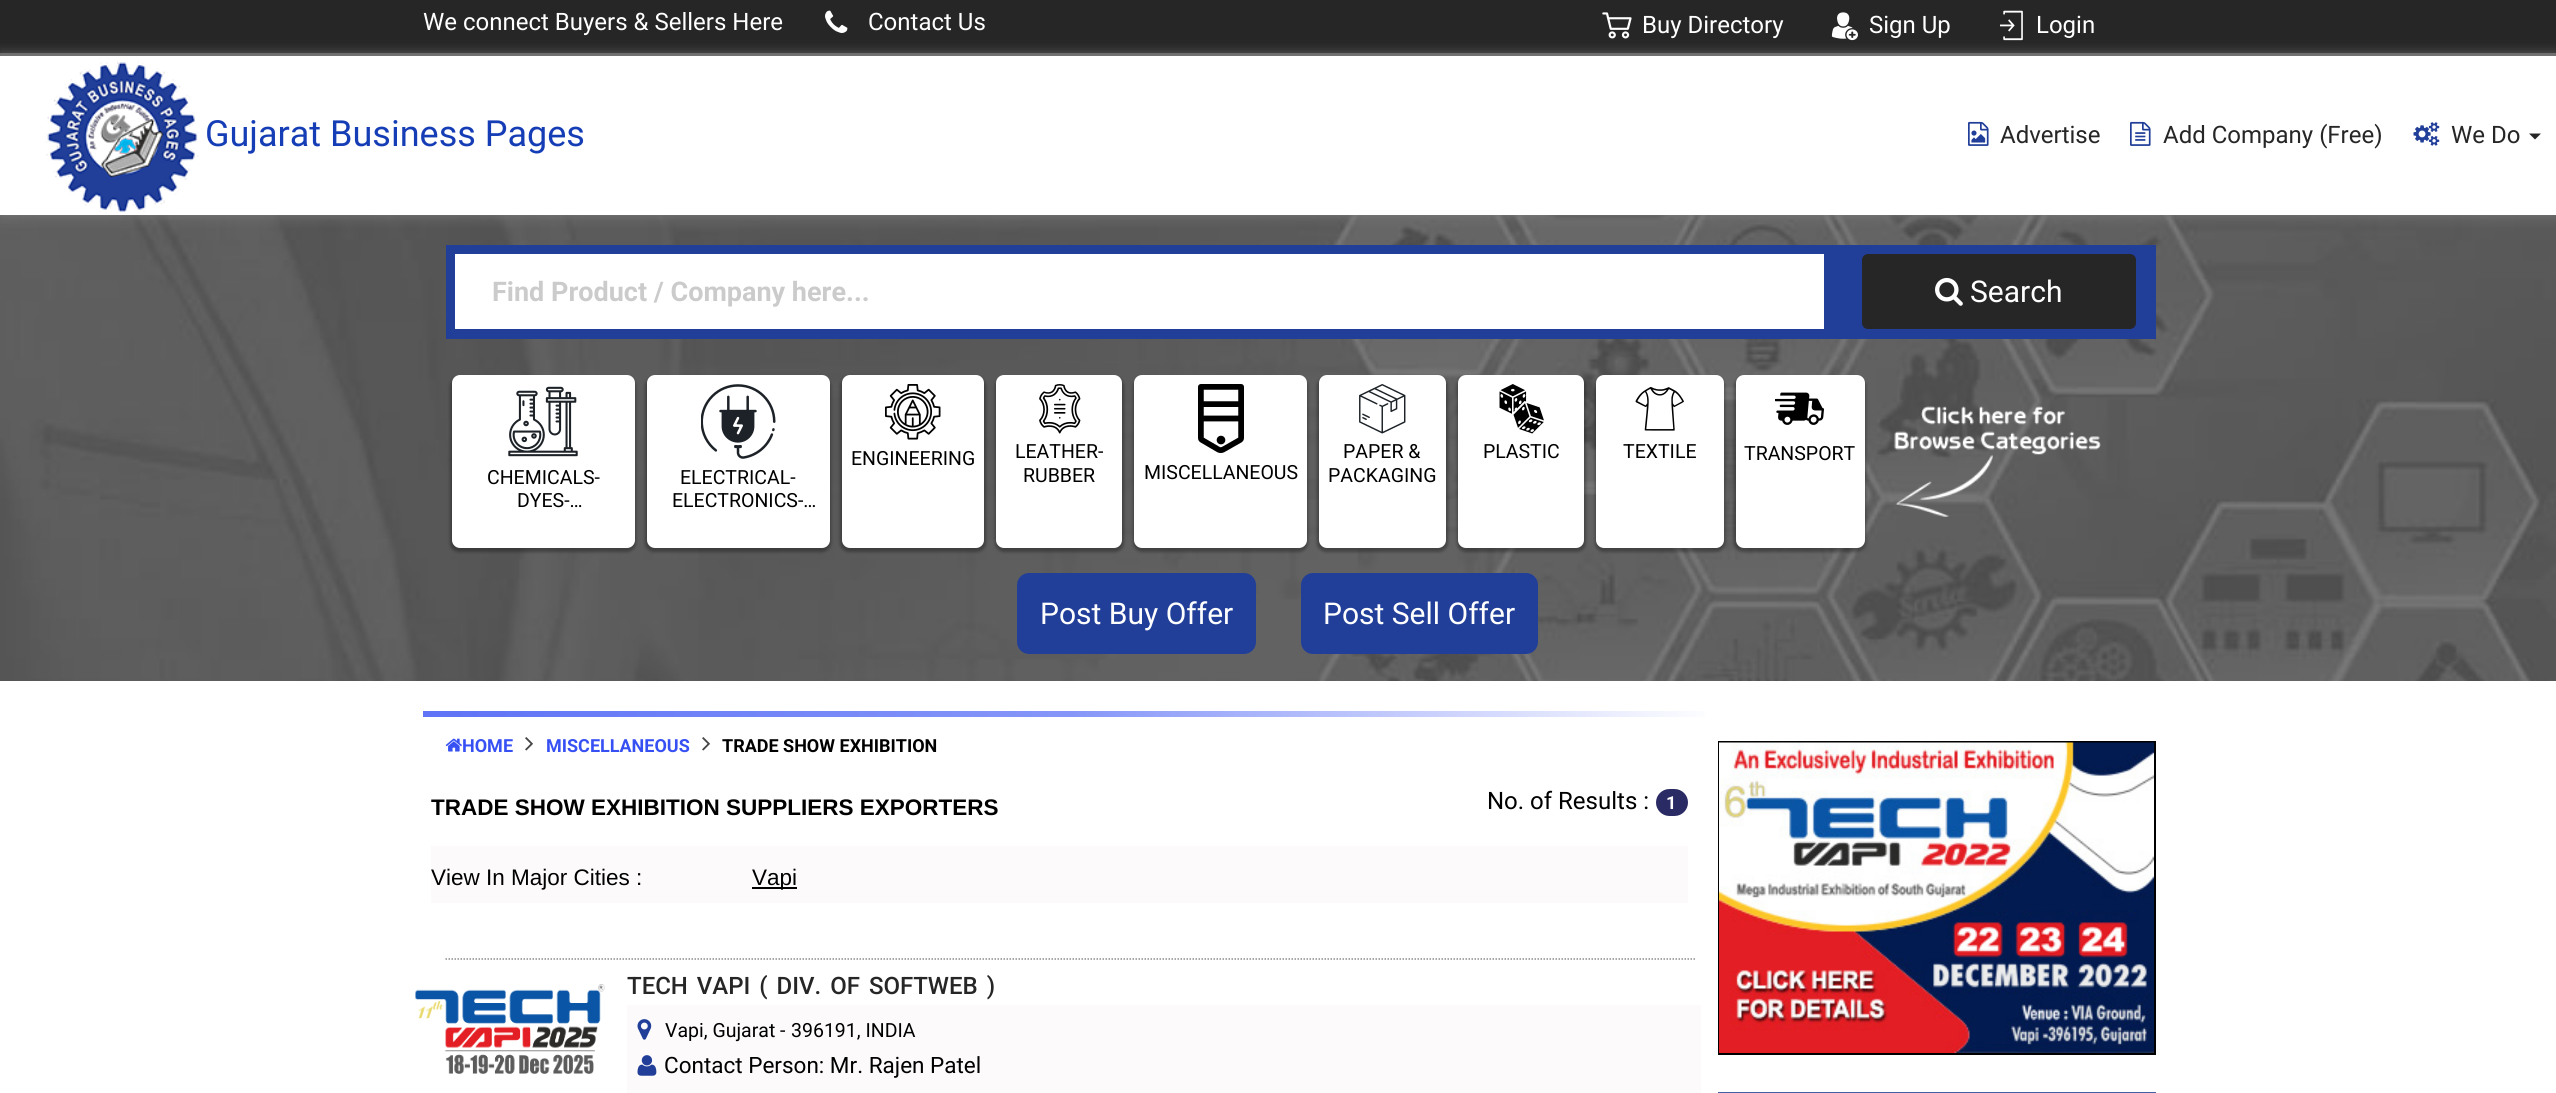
#include <cairo.h>
#include <math.h>
#include <stddef.h>

static cairo_t *ctx;

static void use_color(int r, int g, int b) {
    cairo_set_source_rgb(ctx, r / 255.0, g / 255.0, b / 255.0);
}

static void spaced_text(double x, double y, const char *s, double letter, double word) {
    cairo_move_to(ctx, x, y);
    while (*s) {
        char ch[5] = {0};
        int n = 0;
        do ch[n++] = *s++; while ((*s & 0xC0) == 0x80);
        cairo_show_text(ctx, ch);
        cairo_rel_move_to(ctx, letter + word * (*ch == ' '), 0);
    }
}

static void round_rect(double x, double y, double w, double h, double r) {
    cairo_new_sub_path(ctx);
    cairo_arc(ctx, x + w - r, y + h - r, r, 0, M_PI / 2);
    cairo_arc(ctx, x + r, y + h - r, r, M_PI / 2, M_PI);
    cairo_arc(ctx, x + r, y + r, r, M_PI, 1.5 * M_PI);
    cairo_arc(ctx, x + w - r, y + r, r, 1.5 * M_PI, 2 * M_PI);
    cairo_close_path(ctx);
}

static void shadow(double x, double y, double w, double h, double r, double blur, double alpha) {
    cairo_push_group_with_content(ctx, CAIRO_CONTENT_ALPHA);
    cairo_set_operator(ctx, CAIRO_OPERATOR_SOURCE);
    for (int i = 15; i >= -15 && fmin(w, h) + blur * i / 3 > 0; i -= 2) {
        double e = blur * i / 6;
        cairo_set_source_rgba(ctx, 0, 0, 0, alpha * erfc((i - 1) / 8.5) / 2);
        round_rect(x - e, y - e, w + 2 * e, h + 2 * e, fmax(0, fmin(r + e + blur * .6, fmin(w, h) / 2 + e)));
        cairo_fill(ctx);
    }
    cairo_pattern_t *soft = cairo_pop_group(ctx);
    cairo_mask(ctx, soft);
    cairo_pattern_destroy(soft);
}

static void picture(const char *path, double x, double y, double w, double h) {
    cairo_surface_t *image = cairo_image_surface_create_from_png(path);
    cairo_save(ctx);
    cairo_set_source_surface(ctx, image, x, y);
    cairo_rectangle(ctx, x, y, w, h);
    cairo_fill(ctx);
    cairo_restore(ctx);
    cairo_surface_destroy(image);
}

int main(void) {
    cairo_surface_t *surface = cairo_image_surface_create(CAIRO_FORMAT_RGB24, 2556, 1093);
    ctx = cairo_create(surface);
    cairo_font_options_t *options = cairo_font_options_create();
    cairo_font_options_set_hint_metrics(options, CAIRO_HINT_METRICS_OFF);
    cairo_font_options_set_hint_style(options, CAIRO_HINT_STYLE_NONE);
    cairo_set_font_options(ctx, options);
    cairo_set_miter_limit(ctx, 4);
    cairo_pattern_t *gradient;
    use_color(255, 255, 255);
    cairo_paint(ctx);
    use_color(38, 38, 38);
    cairo_rectangle(ctx, 0, 0, 2556, 53);
    cairo_fill(ctx);
    use_color(104, 104, 104);
    cairo_rectangle(ctx, 0, 53, 2556, 3);
    cairo_fill(ctx);
    cairo_select_font_face(ctx, "Roboto", CAIRO_FONT_SLANT_NORMAL, CAIRO_FONT_WEIGHT_NORMAL);
    cairo_set_font_size(ctx, 24);
    use_color(255, 255, 255);
    cairo_move_to(ctx, 423, 30);
    cairo_show_text(ctx, "We connect Buyers & Sellers Here");
    picture("img1.png", 825, 10, 23, 23);
    cairo_move_to(ctx, 868, 30);
    cairo_show_text(ctx, "Contact Us");
    picture("img2.png", 1602, 12, 30, 27);
    cairo_move_to(ctx, 1642, 33);
    cairo_show_text(ctx, "Buy Directory");
    picture("img3.png", 1831, 12, 27, 29);
    cairo_move_to(ctx, 1869, 33);
    cairo_show_text(ctx, "Sign Up");
    picture("img4.png", 2000, 10, 23, 31);
    cairo_move_to(ctx, 2036, 33);
    cairo_show_text(ctx, "Login");
    picture("img9.png", 0, 215, 2556, 466);
    use_color(123, 123, 123);
    shadow(0, 56, 2556, 159, 0, 7, 1);
    use_color(255, 255, 255);
    cairo_rectangle(ctx, 0, 56, 2556, 159);
    cairo_fill(ctx);
    picture("img5.png", 45, 61, 154, 153);
    cairo_set_font_size(ctx, 36);
    use_color(21, 61, 181);
    cairo_move_to(ctx, 205, 146);
    cairo_show_text(ctx, "Gujarat Business Pages");
    picture("img6.png", 1968, 121, 21, 25);
    cairo_set_font_size(ctx, 24);
    use_color(38, 38, 38);
    cairo_move_to(ctx, 2000, 143);
    cairo_show_text(ctx, "Advertise");
    picture("img7.png", 2130, 121, 21, 25);
    cairo_move_to(ctx, 2163, 143);
    cairo_show_text(ctx, "Add Company (Free)");
    picture("img8.png", 2413, 122, 27, 24);
    cairo_move_to(ctx, 2451, 143);
    cairo_show_text(ctx, "We Do");
    cairo_new_path(ctx);
    cairo_move_to(ctx, 2529, 133.5);
    cairo_line_to(ctx, 2541, 133.5);
    cairo_line_to(ctx, 2535, 139.5);
    cairo_close_path(ctx);
    cairo_fill(ctx);
    use_color(33, 63, 153);
    cairo_rectangle(ctx, 446, 245, 1710, 94);
    cairo_fill(ctx);
    use_color(255, 255, 255);
    cairo_rectangle(ctx, 455, 254, 1369, 75);
    cairo_fill(ctx);
    cairo_select_font_face(ctx, "Roboto", CAIRO_FONT_SLANT_NORMAL, CAIRO_FONT_WEIGHT_BOLD);
    cairo_set_font_size(ctx, 27);
    use_color(203, 203, 203);
    cairo_move_to(ctx, 492, 301);
    cairo_show_text(ctx, "Find Product / Company here...");
    use_color(38, 38, 38);
    round_rect(1862, 254, 274, 75, 6);
    cairo_fill(ctx);
    picture("img10.png", 1935, 277, 28, 29);
    cairo_select_font_face(ctx, "Roboto", CAIRO_FONT_SLANT_NORMAL, CAIRO_FONT_WEIGHT_NORMAL);
    cairo_set_font_size(ctx, 30);
    use_color(255, 255, 255);
    cairo_move_to(ctx, 1970, 302);
    cairo_show_text(ctx, "Search");
    use_color(0, 0, 0);
    shadow(840, 377, 146, 175, 9, 1.5, 0.32);
    use_color(255, 255, 255);
    round_rect(842, 375, 142, 173, 8);
    cairo_fill(ctx);
    picture("img11.png", 885, 384, 56, 56);
    cairo_set_font_size(ctx, 19.5);
    use_color(0, 0, 0);
    cairo_move_to(ctx, 851, 465);
    cairo_show_text(ctx, "ENGINEERING");
    use_color(0, 0, 0);
    shadow(995, 377, 129, 175, 9, 1.5, 0.32);
    use_color(255, 255, 255);
    round_rect(996, 375, 126, 173, 8);
    cairo_fill(ctx);
    picture("img12.png", 1039, 384, 42, 50);
    use_color(0, 0, 0);
    cairo_move_to(ctx, 1015, 458);
    cairo_show_text(ctx, "LEATHER-");
    cairo_move_to(ctx, 1023, 482);
    cairo_show_text(ctx, "RUBBER");
    use_color(0, 0, 0);
    shadow(1317, 377, 131, 175, 9, 1.5, 0.32);
    use_color(255, 255, 255);
    round_rect(1319, 375, 127, 173, 8);
    cairo_fill(ctx);
    picture("img13.png", 1359, 384, 47, 50);
    use_color(0, 0, 0);
    cairo_move_to(ctx, 1343, 458);
    cairo_show_text(ctx, "PAPER &");
    cairo_move_to(ctx, 1328, 482);
    cairo_show_text(ctx, "PACKAGING");
    use_color(0, 0, 0);
    shadow(1457, 377, 129, 175, 9, 1.5, 0.32);
    use_color(255, 255, 255);
    round_rect(1458, 375, 126, 173, 8);
    cairo_fill(ctx);
    picture("img14.png", 1499, 384, 45, 50);
    use_color(0, 0, 0);
    cairo_move_to(ctx, 1483, 458);
    cairo_show_text(ctx, "PLASTIC");
    use_color(0, 0, 0);
    shadow(1595, 377, 130, 175, 9, 1.5, 0.32);
    use_color(255, 255, 255);
    round_rect(1596, 375, 128, 173, 8);
    cairo_fill(ctx);
    picture("img15.png", 1635, 386, 49, 45);
    use_color(0, 0, 0);
    cairo_move_to(ctx, 1623, 458);
    cairo_show_text(ctx, "TEXTILE");
    use_color(0, 0, 0);
    shadow(1734, 377, 132, 175, 9, 1.5, 0.32);
    use_color(255, 255, 255);
    round_rect(1736, 375, 129, 173, 8);
    cairo_fill(ctx);
    picture("img16.png", 1775, 392, 49, 33);
    use_color(0, 0, 0);
    cairo_move_to(ctx, 1744, 460);
    cairo_show_text(ctx, "TRANSPORT");
    use_color(0, 0, 0);
    shadow(450, 377, 186, 175, 9, 1.5, 0.32);
    use_color(255, 255, 255);
    round_rect(452, 375, 183, 173, 8);
    cairo_fill(ctx);
    picture("img17.png", 508, 386, 70, 71);
    use_color(0, 0, 0);
    cairo_move_to(ctx, 487, 484);
    cairo_show_text(ctx, "CHEMICALS-");
    cairo_move_to(ctx, 517, 507);
    cairo_show_text(ctx, "DYES-…");
    use_color(0, 0, 0);
    shadow(645, 377, 186, 175, 9, 1.5, 0.32);
    use_color(255, 255, 255);
    round_rect(647, 375, 183, 173, 8);
    cairo_fill(ctx);
    picture("img18.png", 701, 384, 75, 75);
    use_color(0, 0, 0);
    cairo_move_to(ctx, 680, 484);
    cairo_show_text(ctx, "ELECTRICAL-");
    cairo_move_to(ctx, 672, 507);
    cairo_show_text(ctx, "ELECTRONICS-…");
    use_color(0, 0, 0);
    shadow(1133, 377, 175, 175, 9, 1.5, 0.32);
    use_color(255, 255, 255);
    round_rect(1134, 375, 173, 173, 8);
    cairo_fill(ctx);
    picture("img19.png", 1198, 384, 46, 69);
    use_color(0, 0, 0);
    cairo_move_to(ctx, 1144, 479);
    cairo_show_text(ctx, "MISCELLANEOUS");
    picture("img20.png", 1894, 406, 207, 111);
    use_color(33, 63, 153);
    round_rect(1018.5, 574.5, 236, 78, 10.5);
    cairo_fill_preserve(ctx);
    cairo_set_line_width(ctx, 3);
    cairo_stroke(ctx);
    cairo_set_font_size(ctx, 30);
    use_color(255, 255, 255);
    cairo_move_to(ctx, 1040, 624);
    cairo_show_text(ctx, "Post Buy Offer");
    use_color(33, 63, 153);
    round_rect(1302.5, 574.5, 234, 78, 10.5);
    cairo_fill_preserve(ctx);
    cairo_stroke(ctx);
    use_color(255, 255, 255);
    cairo_move_to(ctx, 1323, 624);
    cairo_show_text(ctx, "Post Sell Offer");
    gradient = cairo_pattern_create_linear(423, 714, 1718, 714);
    cairo_pattern_add_color_stop_rgba(gradient, 0, 0.369, 0.451, 0.965, 1);
    cairo_pattern_add_color_stop_rgba(gradient, 0.5, 0.525, 0.588, 0.973, 1);
    cairo_pattern_add_color_stop_rgba(gradient, 1, 1, 1, 1, 1);
    cairo_set_source(ctx, gradient);
    cairo_pattern_destroy(gradient);
    cairo_rectangle(ctx, 423, 711, 1282, 6);
    cairo_fill(ctx);
    picture("img21.png", 445, 738, 17, 14);
    cairo_select_font_face(ctx, "Roboto", CAIRO_FONT_SLANT_NORMAL, CAIRO_FONT_WEIGHT_BOLD);
    cairo_set_font_size(ctx, 18);
    use_color(54, 80, 244);
    cairo_move_to(ctx, 462, 752);
    cairo_show_text(ctx, "HOME");
    picture("img22.png", 525, 737, 8, 14);
    cairo_move_to(ctx, 546, 752);
    cairo_show_text(ctx, "MISCELLANEOUS");
    picture("img22.png", 702, 737, 8, 14);
    use_color(0, 0, 0);
    cairo_move_to(ctx, 722, 752);
    cairo_show_text(ctx, "TRADE SHOW EXHIBITION");
    cairo_select_font_face(ctx, "Liberation Sans", CAIRO_FONT_SLANT_NORMAL, CAIRO_FONT_WEIGHT_BOLD);
    cairo_set_font_size(ctx, 22.5);
    cairo_move_to(ctx, 431, 815);
    cairo_show_text(ctx, "TRADE SHOW EXHIBITION SUPPLIERS EXPORTERS");
    cairo_select_font_face(ctx, "Roboto", CAIRO_FONT_SLANT_NORMAL, CAIRO_FONT_WEIGHT_NORMAL);
    cairo_set_font_size(ctx, 24);
    cairo_move_to(ctx, 1487, 809);
    cairo_show_text(ctx, "No. of Results :");
    use_color(42, 43, 101);
    round_rect(1656, 789, 32, 27, 13.5);
    cairo_fill(ctx);
    cairo_select_font_face(ctx, "Roboto", CAIRO_FONT_SLANT_NORMAL, CAIRO_FONT_WEIGHT_BOLD);
    cairo_set_font_size(ctx, 18);
    use_color(255, 255, 255);
    cairo_move_to(ctx, 1666, 809);
    cairo_show_text(ctx, "1");
    use_color(252, 250, 250);
    cairo_rectangle(ctx, 431, 846, 1257, 57);
    cairo_fill(ctx);
    cairo_select_font_face(ctx, "Liberation Sans", CAIRO_FONT_SLANT_NORMAL, CAIRO_FONT_WEIGHT_NORMAL);
    cairo_set_font_size(ctx, 22.5);
    use_color(0, 0, 0);
    cairo_move_to(ctx, 431, 885);
    cairo_show_text(ctx, "View In Major Cities :");
    cairo_rectangle(ctx, 752, 887, 45, 2);
    cairo_fill(ctx);
    cairo_move_to(ctx, 752, 885);
    cairo_show_text(ctx, "Vapi");
    cairo_new_path(ctx);
    cairo_move_to(ctx, 445.5, 959);
    cairo_line_to(ctx, 1695, 959);
    use_color(140, 139, 139);
    cairo_set_line_width(ctx, 1.5);
    cairo_set_dash(ctx, (double[]){1.5, 1.5}, 2, 0);
    cairo_stroke(ctx);
    picture("img23.png", 415, 984, 190, 90);
    cairo_select_font_face(ctx, "Roboto Medium", CAIRO_FONT_SLANT_NORMAL, CAIRO_FONT_WEIGHT_NORMAL);
    cairo_set_font_size(ctx, 24);
    use_color(38, 38, 38);
    spaced_text(627, 994, "TECH VAPI ( DIV. OF SOFTWEB )", 0, 3);
    use_color(252, 250, 250);
    cairo_rectangle(ctx, 627, 1005, 1074, 88);
    cairo_fill(ctx);
    picture("img24.png", 637, 1019, 15, 21);
    cairo_select_font_face(ctx, "Roboto", CAIRO_FONT_SLANT_NORMAL, CAIRO_FONT_WEIGHT_NORMAL);
    cairo_set_font_size(ctx, 19.5);
    use_color(0, 0, 0);
    cairo_move_to(ctx, 665, 1037);
    cairo_show_text(ctx, "Vapi, Gujarat -");
    cairo_move_to(ctx, 791, 1037);
    cairo_show_text(ctx, "396191, INDIA");
    picture("img25.png", 637, 1055, 20, 21);
    cairo_set_font_size(ctx, 22.5);
    cairo_move_to(ctx, 664, 1073);
    cairo_show_text(ctx, "Contact Person: Mr. Rajen Patel");
    cairo_rectangle(ctx, 1719, 742, 436, 312);
    cairo_set_line_width(ctx, 2);
    cairo_set_dash(ctx, NULL, 0, 0);
    cairo_stroke(ctx);
    picture("img26.png", 1719, 742, 435, 311);
    use_color(71, 95, 165);
    cairo_rectangle(ctx, 1718, 1092, 438, 1);
    cairo_fill(ctx);
    cairo_surface_write_to_png(surface, "result.png");
    cairo_font_options_destroy(options);
    cairo_destroy(ctx);
    cairo_surface_destroy(surface);
    return 0;
}
